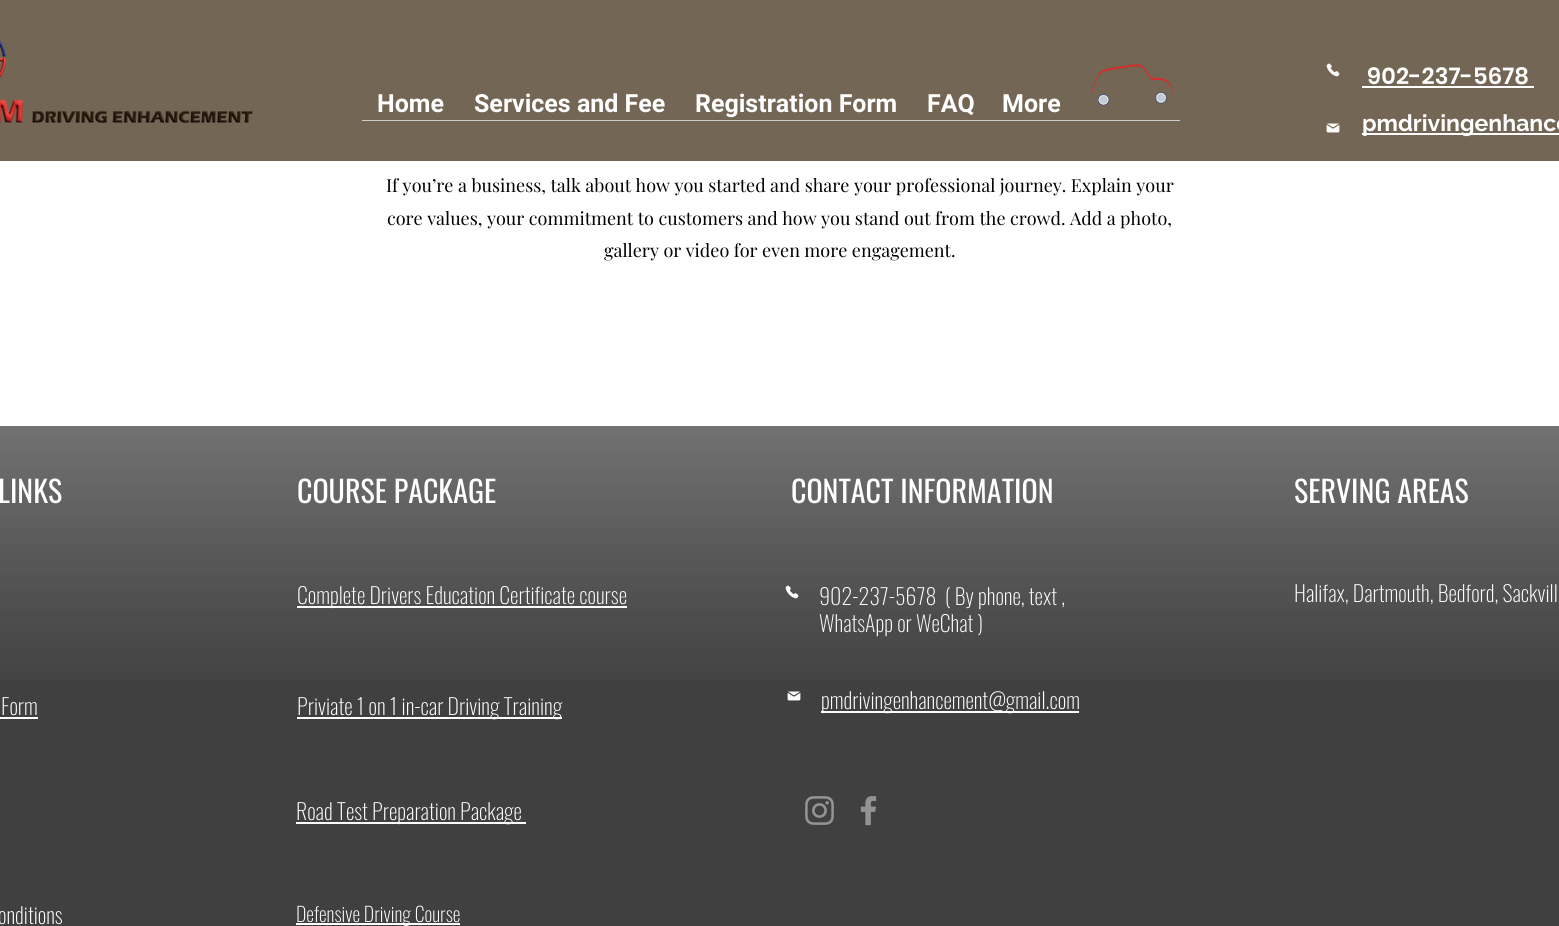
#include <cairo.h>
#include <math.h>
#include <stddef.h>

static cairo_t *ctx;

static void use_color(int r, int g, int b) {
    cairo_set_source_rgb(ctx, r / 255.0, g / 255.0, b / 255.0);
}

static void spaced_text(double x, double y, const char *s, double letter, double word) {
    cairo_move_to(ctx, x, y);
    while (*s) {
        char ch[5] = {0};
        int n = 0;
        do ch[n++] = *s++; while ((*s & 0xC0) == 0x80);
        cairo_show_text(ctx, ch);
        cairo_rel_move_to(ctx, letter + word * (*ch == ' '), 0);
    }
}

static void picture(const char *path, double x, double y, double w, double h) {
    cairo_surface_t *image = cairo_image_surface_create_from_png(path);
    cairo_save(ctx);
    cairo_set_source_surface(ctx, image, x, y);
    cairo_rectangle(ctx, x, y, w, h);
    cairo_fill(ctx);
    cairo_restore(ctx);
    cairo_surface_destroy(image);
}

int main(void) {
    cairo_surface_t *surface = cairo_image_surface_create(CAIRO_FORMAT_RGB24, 1559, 926);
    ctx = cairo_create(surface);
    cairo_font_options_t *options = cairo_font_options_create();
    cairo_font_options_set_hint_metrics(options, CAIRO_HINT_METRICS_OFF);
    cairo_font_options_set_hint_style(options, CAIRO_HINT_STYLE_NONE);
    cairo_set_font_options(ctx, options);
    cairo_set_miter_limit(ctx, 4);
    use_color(255, 255, 255);
    cairo_paint(ctx);
    use_color(116, 102, 85);
    cairo_rectangle(ctx, 0, 0, 1559, 161);
    cairo_fill(ctx);
    picture("img1.png", 0, 41, 253, 83);
    picture("img2.png", 1090, 64, 83, 42);
    picture("img3.png", 1326, 63, 14, 14);
    cairo_select_font_face(ctx, "Poppins SemiBold", CAIRO_FONT_SLANT_NORMAL, CAIRO_FONT_WEIGHT_NORMAL);
    cairo_set_font_size(ctx, 23);
    use_color(255, 255, 255);
    spaced_text(1367, 84, "902-237-5678", 0.25, 0);
    cairo_rectangle(ctx, 1362, 86, 172, 2);
    cairo_fill(ctx);
    cairo_select_font_face(ctx, "Roboto", CAIRO_FONT_SLANT_NORMAL, CAIRO_FONT_WEIGHT_BOLD);
    cairo_set_font_size(ctx, 25);
    cairo_move_to(ctx, 377, 112);
    cairo_show_text(ctx, "Home");
    cairo_move_to(ctx, 474, 112);
    cairo_show_text(ctx, "Services and Fee");
    cairo_move_to(ctx, 695, 112);
    cairo_show_text(ctx, "Registration Form");
    cairo_move_to(ctx, 927, 112);
    cairo_show_text(ctx, "FAQ");
    cairo_move_to(ctx, 1002, 112);
    cairo_show_text(ctx, "More");
    use_color(204, 204, 204);
    cairo_rectangle(ctx, 362, 120, 818, 1);
    cairo_fill(ctx);
    picture("img4.png", 1326, 123, 14, 10);
    use_color(255, 255, 255);
    cairo_rectangle(ctx, 1362, 133, 197, 2);
    cairo_fill(ctx);
    cairo_select_font_face(ctx, "Raleway", CAIRO_FONT_SLANT_NORMAL, CAIRO_FONT_WEIGHT_BOLD);
    cairo_set_font_size(ctx, 23);
    cairo_move_to(ctx, 1362, 131);
    cairo_show_text(ctx, "pmdrivingenhance");
    cairo_select_font_face(ctx, "Playfair Display", CAIRO_FONT_SLANT_NORMAL, CAIRO_FONT_WEIGHT_NORMAL);
    cairo_set_font_size(ctx, 18);
    use_color(0, 0, 0);
    cairo_move_to(ctx, 386, 192);
    cairo_show_text(ctx, "If you’re a business, talk about how you started and share your professional journey. Explain your");
    cairo_move_to(ctx, 387, 225);
    cairo_show_text(ctx, "core values, your commitment to customers and how you stand out from the crowd. Add a photo,");
    cairo_move_to(ctx, 604, 257);
    cairo_show_text(ctx, "gallery or video for even more engagement.");
    use_color(64, 64, 64);
    cairo_rectangle(ctx, 0, 426, 1559, 500);
    cairo_fill(ctx);
    picture("img5.png", 0, 426, 1559, 254);
    cairo_select_font_face(ctx, "Oswald", CAIRO_FONT_SLANT_NORMAL, CAIRO_FONT_WEIGHT_NORMAL);
    cairo_set_font_size(ctx, 30);
    use_color(255, 255, 255);
    cairo_move_to(ctx, -2, 503);
    cairo_show_text(ctx, "LINKS");
    cairo_move_to(ctx, 297, 503);
    cairo_show_text(ctx, "COURSE PACKAGE");
    cairo_move_to(ctx, 791, 503);
    cairo_show_text(ctx, "CONTACT INFORMATION");
    cairo_move_to(ctx, 1294, 503);
    cairo_show_text(ctx, "SERVING AREAS");
    cairo_rectangle(ctx, 297, 606, 330, 2);
    cairo_fill(ctx);
    cairo_select_font_face(ctx, "Oswald ExtraLight", CAIRO_FONT_SLANT_NORMAL, CAIRO_FONT_WEIGHT_NORMAL);
    cairo_set_font_size(ctx, 22);
    cairo_move_to(ctx, 297, 604);
    cairo_show_text(ctx, "Complete Drivers Education Certificate course");
    picture("img6.png", 785, 585, 14, 14);
    cairo_move_to(ctx, 819, 605);
    cairo_show_text(ctx, "902-237-5678  ( By phone, text ,");
    cairo_move_to(ctx, 819, 632);
    cairo_show_text(ctx, "WhatsApp or WeChat )");
    cairo_move_to(ctx, 1294, 602);
    cairo_show_text(ctx, "Halifax, Dartmouth, Bedford, Sackvill");
    cairo_move_to(ctx, 1, 715);
    cairo_show_text(ctx, "Form");
    cairo_rectangle(ctx, 0, 717, 38, 2);
    cairo_fill(ctx);
    cairo_rectangle(ctx, 297, 717, 265, 2);
    cairo_fill(ctx);
    cairo_move_to(ctx, 297, 715);
    cairo_show_text(ctx, "Priviate 1 on 1 in-car Driving Training");
    picture("img7.png", 787, 691, 14, 10);
    cairo_rectangle(ctx, 821, 711, 258, 2);
    cairo_fill(ctx);
    cairo_move_to(ctx, 821, 709);
    cairo_show_text(ctx, "pmdrivingenhancement@gmail.com");
    cairo_rectangle(ctx, 296, 822, 230, 2);
    cairo_fill(ctx);
    cairo_move_to(ctx, 296, 820);
    cairo_show_text(ctx, "Road Test Preparation Package");
    picture("img8.png", 805, 796, 29, 29);
    picture("img9.png", 860, 796, 17, 30);
    cairo_move_to(ctx, -2, 924);
    cairo_show_text(ctx, "onditions");
    cairo_rectangle(ctx, 296, 923, 164, 2);
    cairo_fill(ctx);
    cairo_set_font_size(ctx, 20);
    cairo_move_to(ctx, 296, 922);
    cairo_show_text(ctx, "Defensive Driving Course");
    cairo_surface_write_to_png(surface, "result.png");
    cairo_font_options_destroy(options);
    cairo_destroy(ctx);
    cairo_surface_destroy(surface);
    return 0;
}
